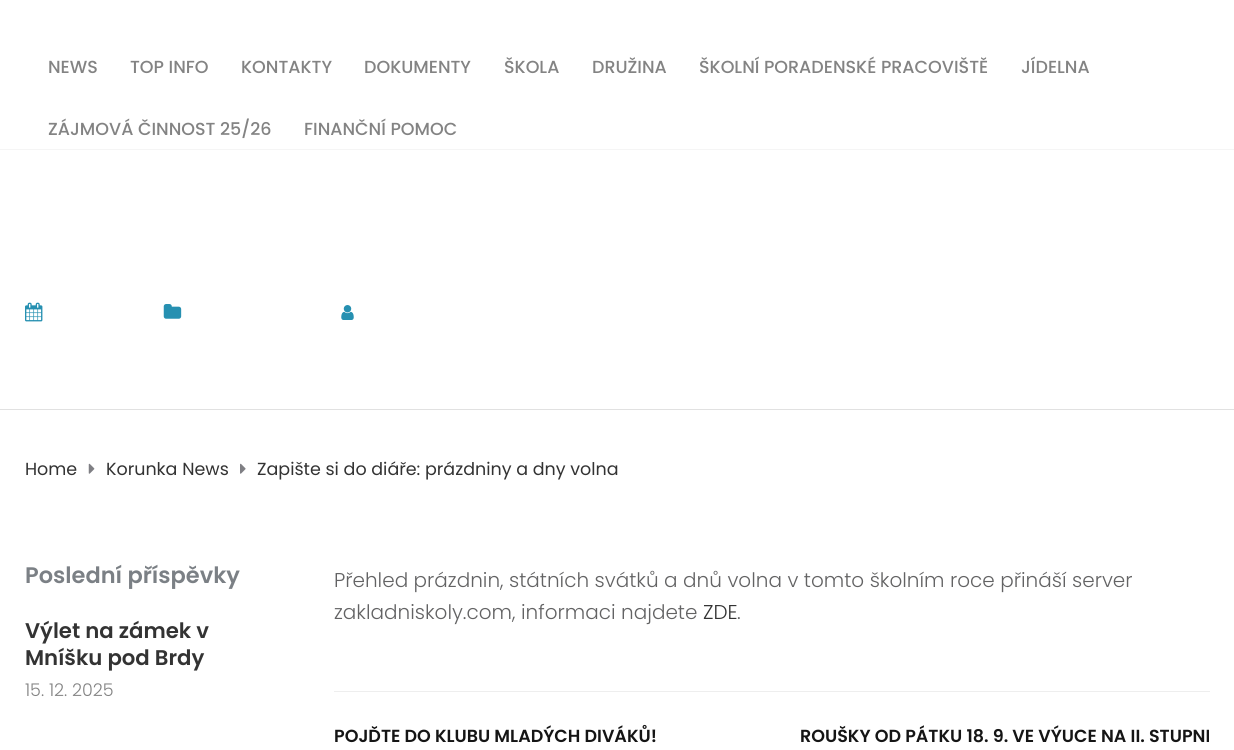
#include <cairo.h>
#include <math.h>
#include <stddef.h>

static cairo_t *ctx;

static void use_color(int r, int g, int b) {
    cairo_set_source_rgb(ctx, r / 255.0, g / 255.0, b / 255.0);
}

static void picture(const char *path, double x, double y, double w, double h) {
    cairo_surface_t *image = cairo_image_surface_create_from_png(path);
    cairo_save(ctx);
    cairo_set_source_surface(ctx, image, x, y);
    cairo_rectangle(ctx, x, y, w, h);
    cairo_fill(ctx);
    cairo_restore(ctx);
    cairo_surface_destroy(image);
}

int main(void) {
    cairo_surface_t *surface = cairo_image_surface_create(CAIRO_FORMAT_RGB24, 1234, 750);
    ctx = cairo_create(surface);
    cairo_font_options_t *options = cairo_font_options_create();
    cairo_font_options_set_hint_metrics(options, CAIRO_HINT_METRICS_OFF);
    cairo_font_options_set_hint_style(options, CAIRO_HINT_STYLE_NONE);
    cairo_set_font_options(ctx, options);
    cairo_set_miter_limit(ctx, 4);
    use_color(255, 255, 255);
    cairo_paint(ctx);
    use_color(245, 245, 245);
    cairo_rectangle(ctx, 0, 149, 1234, 1);
    cairo_fill(ctx);
    cairo_select_font_face(ctx, "Poppins Medium", CAIRO_FONT_SLANT_NORMAL, CAIRO_FONT_WEIGHT_NORMAL);
    cairo_set_font_size(ctx, 17.5);
    use_color(131, 131, 131);
    cairo_move_to(ctx, 48, 73);
    cairo_show_text(ctx, "NEWS");
    cairo_move_to(ctx, 130, 73);
    cairo_show_text(ctx, "TOP INFO");
    cairo_move_to(ctx, 241, 73);
    cairo_show_text(ctx, "KONTAKTY");
    cairo_move_to(ctx, 364, 73);
    cairo_show_text(ctx, "DOKUMENTY");
    cairo_move_to(ctx, 504, 73);
    cairo_show_text(ctx, "ŠKOLA");
    cairo_move_to(ctx, 592, 73);
    cairo_show_text(ctx, "DRUŽINA");
    cairo_move_to(ctx, 699, 73);
    cairo_show_text(ctx, "ŠKOLNÍ PORADENSKÉ PRACOVIŠTĚ");
    cairo_move_to(ctx, 1021, 73);
    cairo_show_text(ctx, "JÍDELNA");
    cairo_move_to(ctx, 48, 135);
    cairo_show_text(ctx, "ZÁJMOVÁ ČINNOST 25/26");
    cairo_move_to(ctx, 304, 135);
    cairo_show_text(ctx, "FINANČNÍ POMOC");
    use_color(225, 225, 225);
    cairo_rectangle(ctx, 0, 409, 1234, 1);
    cairo_fill(ctx);
    picture("img1.png", 25, 302, 18, 20);
    picture("img2.png", 163, 304, 19, 15);
    picture("img3.png", 341, 305, 13, 15);
    cairo_select_font_face(ctx, "Poppins", CAIRO_FONT_SLANT_NORMAL, CAIRO_FONT_WEIGHT_NORMAL);
    use_color(51, 51, 51);
    cairo_move_to(ctx, 25, 475);
    cairo_show_text(ctx, "Home");
    picture("img4.png", 88, 463, 7, 11);
    cairo_move_to(ctx, 106, 475);
    cairo_show_text(ctx, "Korunka News");
    picture("img5.png", 240, 463, 6, 11);
    cairo_move_to(ctx, 257, 475);
    cairo_show_text(ctx, "Zapište si do diáře: prázdniny a dny volna");
    cairo_select_font_face(ctx, "Poppins SemiBold", CAIRO_FONT_SLANT_NORMAL, CAIRO_FONT_WEIGHT_NORMAL);
    cairo_set_font_size(ctx, 22.5);
    use_color(123, 128, 133);
    cairo_move_to(ctx, 25, 583);
    cairo_show_text(ctx, "Poslední příspěvky");
    cairo_set_font_size(ctx, 21.25);
    use_color(51, 51, 51);
    cairo_move_to(ctx, 25, 638);
    cairo_show_text(ctx, "Výlet na zámek v");
    cairo_move_to(ctx, 25, 665);
    cairo_show_text(ctx, "Mníšku pod Brdy");
    cairo_select_font_face(ctx, "Poppins Light", CAIRO_FONT_SLANT_NORMAL, CAIRO_FONT_WEIGHT_NORMAL);
    cairo_set_font_size(ctx, 17.5);
    use_color(131, 131, 131);
    cairo_move_to(ctx, 25, 696);
    cairo_show_text(ctx, "15. 12. 2025");
    cairo_set_font_size(ctx, 20);
    use_color(99, 99, 100);
    cairo_move_to(ctx, 334, 587);
    cairo_show_text(ctx, "Přehled prázdnin, státních svátků a dnů volna v tomto školním roce přináší server");
    cairo_move_to(ctx, 334, 619);
    cairo_show_text(ctx, "zakladniskoly.com, informaci najdete");
    use_color(51, 51, 51);
    cairo_move_to(ctx, 703, 619);
    cairo_show_text(ctx, "ZDE");
    use_color(99, 99, 100);
    cairo_move_to(ctx, 737, 619);
    cairo_show_text(ctx, ".");
    use_color(238, 238, 238);
    cairo_rectangle(ctx, 334, 691, 876, 1);
    cairo_fill(ctx);
    cairo_select_font_face(ctx, "Poppins SemiBold", CAIRO_FONT_SLANT_NORMAL, CAIRO_FONT_WEIGHT_NORMAL);
    cairo_set_font_size(ctx, 17.5);
    use_color(21, 21, 21);
    cairo_move_to(ctx, 334, 742);
    cairo_show_text(ctx, "POJĎTE DO KLUBU MLADÝCH DIVÁKŮ!");
    cairo_move_to(ctx, 800, 742);
    cairo_show_text(ctx, "ROUŠKY OD PÁTKU 18. 9. VE VÝUCE NA II. STUPNI");
    cairo_surface_write_to_png(surface, "result.png");
    cairo_font_options_destroy(options);
    cairo_destroy(ctx);
    cairo_surface_destroy(surface);
    return 0;
}
